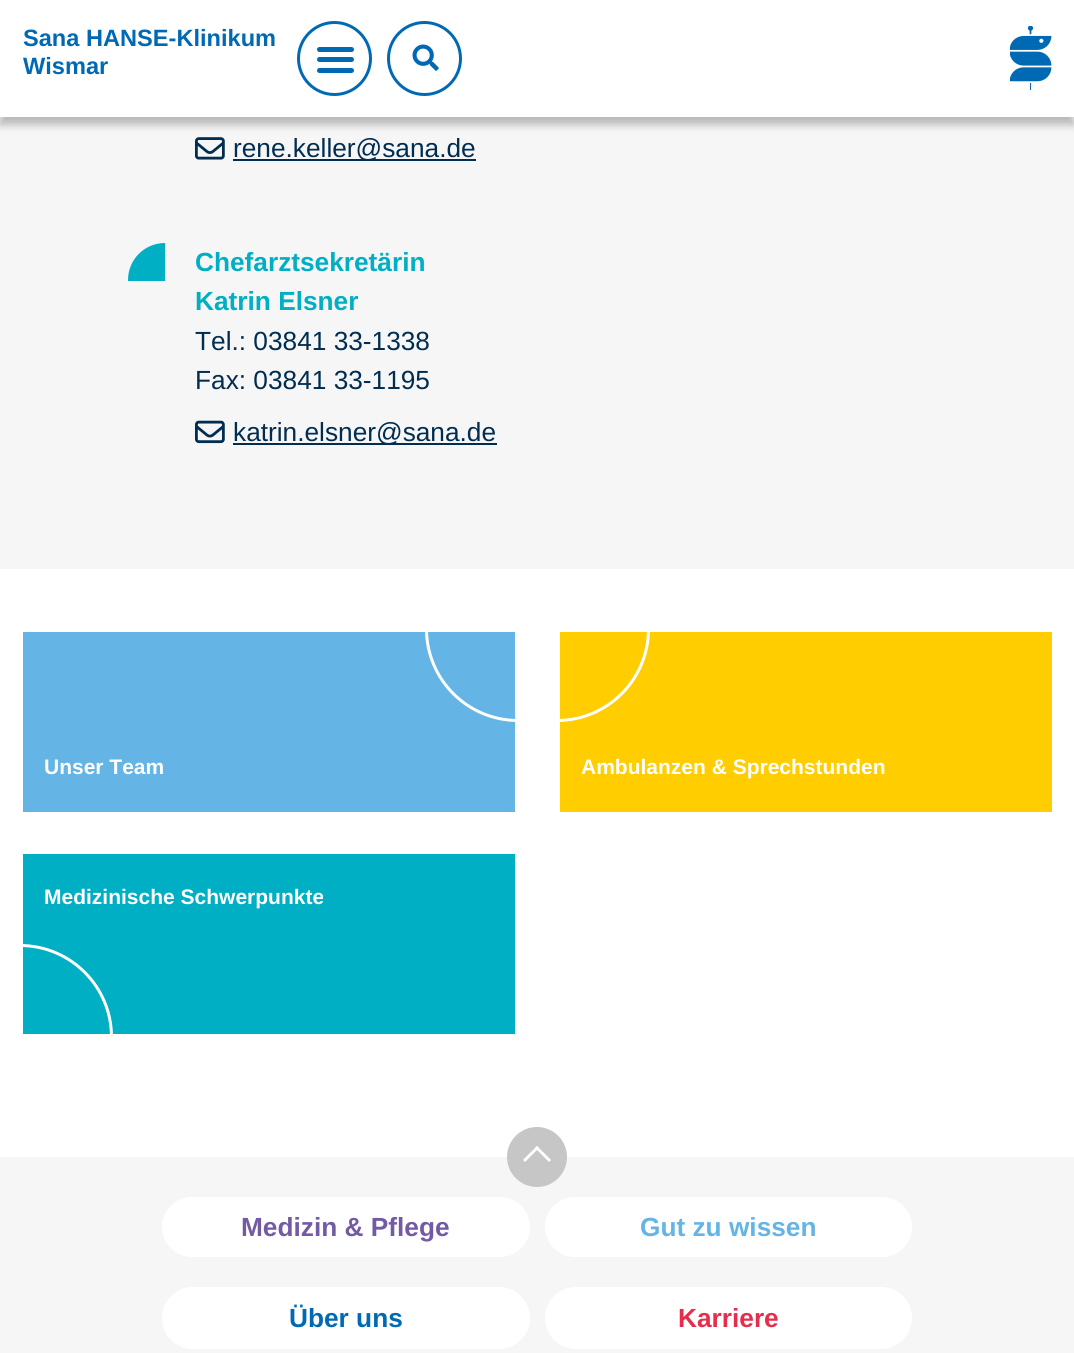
#include <cairo.h>
#include <math.h>
#include <stddef.h>

static cairo_t *ctx;

static void use_color(int r, int g, int b) {
    cairo_set_source_rgb(ctx, r / 255.0, g / 255.0, b / 255.0);
}

static void round_rect(double x, double y, double w, double h, double r) {
    cairo_new_sub_path(ctx);
    cairo_arc(ctx, x + w - r, y + h - r, r, 0, M_PI / 2);
    cairo_arc(ctx, x + r, y + h - r, r, M_PI / 2, M_PI);
    cairo_arc(ctx, x + r, y + r, r, M_PI, 1.5 * M_PI);
    cairo_arc(ctx, x + w - r, y + r, r, 1.5 * M_PI, 2 * M_PI);
    cairo_close_path(ctx);
}

static void shadow(double x, double y, double w, double h, double r, double blur, double alpha) {
    cairo_push_group_with_content(ctx, CAIRO_CONTENT_ALPHA);
    cairo_set_operator(ctx, CAIRO_OPERATOR_SOURCE);
    for (int i = 15; i >= -15 && fmin(w, h) + blur * i / 3 > 0; i -= 2) {
        double e = blur * i / 6;
        cairo_set_source_rgba(ctx, 0, 0, 0, alpha * erfc((i - 1) / 8.5) / 2);
        round_rect(x - e, y - e, w + 2 * e, h + 2 * e, fmax(0, fmin(r + e + blur * .6, fmin(w, h) / 2 + e)));
        cairo_fill(ctx);
    }
    cairo_pattern_t *soft = cairo_pop_group(ctx);
    cairo_mask(ctx, soft);
    cairo_pattern_destroy(soft);
}

static void picture(const char *path, double x, double y, double w, double h) {
    cairo_surface_t *image = cairo_image_surface_create_from_png(path);
    cairo_save(ctx);
    cairo_set_source_surface(ctx, image, x, y);
    cairo_rectangle(ctx, x, y, w, h);
    cairo_fill(ctx);
    cairo_restore(ctx);
    cairo_surface_destroy(image);
}

int main(void) {
    cairo_surface_t *surface = cairo_image_surface_create(CAIRO_FORMAT_RGB24, 1074, 1353);
    ctx = cairo_create(surface);
    cairo_font_options_t *options = cairo_font_options_create();
    cairo_font_options_set_hint_metrics(options, CAIRO_HINT_METRICS_OFF);
    cairo_font_options_set_hint_style(options, CAIRO_HINT_STYLE_NONE);
    cairo_set_font_options(ctx, options);
    cairo_set_miter_limit(ctx, 4);
    use_color(255, 255, 255);
    cairo_paint(ctx);
    use_color(246, 246, 246);
    cairo_rectangle(ctx, 0, 117, 1074, 452);
    cairo_fill(ctx);
    picture("img3.png", 195, 137, 30, 23);
    use_color(0, 0, 0);
    shadow(0, 8, 1074, 117, 0, 4, 0.25);
    use_color(255, 255, 255);
    cairo_rectangle(ctx, 0, 1, 1074, 116);
    cairo_fill(ctx);
    cairo_select_font_face(ctx, "Liberation Sans", CAIRO_FONT_SLANT_NORMAL, CAIRO_FONT_WEIGHT_BOLD);
    cairo_set_font_size(ctx, 23.6);
    use_color(0, 105, 180);
    cairo_move_to(ctx, 23, 46);
    cairo_show_text(ctx, "Sana HANSE-Klinikum");
    cairo_move_to(ctx, 23, 74);
    cairo_show_text(ctx, "Wismar");
    cairo_new_path(ctx);
    cairo_arc(ctx, 334.5, 58.5, 36, 0, 2 * M_PI);
    cairo_set_line_width(ctx, 3);
    cairo_stroke(ctx);
    round_rect(317, 47, 37, 5, 2.5);
    cairo_fill(ctx);
    round_rect(317, 57, 37, 5, 2.5);
    cairo_fill(ctx);
    round_rect(317, 68, 37, 5, 2.5);
    cairo_fill(ctx);
    cairo_arc(ctx, 424.5, 58.5, 36, 0, 2 * M_PI);
    cairo_stroke(ctx);
    picture("img1.png", 412, 44, 27, 27);
    picture("img2.png", 1010, 26, 42, 64);
    use_color(0, 45, 80);
    cairo_rectangle(ctx, 233, 159, 243, 2);
    cairo_fill(ctx);
    cairo_select_font_face(ctx, "Liberation Sans", CAIRO_FONT_SLANT_NORMAL, CAIRO_FONT_WEIGHT_NORMAL);
    cairo_set_font_size(ctx, 26.25);
    cairo_move_to(ctx, 233, 157);
    cairo_show_text(ctx, "rene.keller@sana.de");
    use_color(0, 175, 195);
    cairo_new_path(ctx);
    cairo_move_to(ctx, 165, 243);
    cairo_line_to(ctx, 165, 281);
    cairo_line_to(ctx, 128, 281);
    cairo_line_to(ctx, 128, 280);
    cairo_curve_to(ctx, 128, 259.5, 144.5, 243, 165, 243);
    cairo_close_path(ctx);
    cairo_fill(ctx);
    cairo_select_font_face(ctx, "Liberation Sans", CAIRO_FONT_SLANT_NORMAL, CAIRO_FONT_WEIGHT_BOLD);
    cairo_move_to(ctx, 195, 271);
    cairo_show_text(ctx, "Chefarztsekretärin");
    cairo_move_to(ctx, 195, 310);
    cairo_show_text(ctx, "Katrin Elsner");
    cairo_select_font_face(ctx, "Liberation Sans", CAIRO_FONT_SLANT_NORMAL, CAIRO_FONT_WEIGHT_NORMAL);
    use_color(0, 45, 80);
    cairo_move_to(ctx, 195, 350);
    cairo_show_text(ctx, "Tel.: 03841 33-1338");
    cairo_move_to(ctx, 195, 389);
    cairo_show_text(ctx, "Fax: 03841 33-1195");
    picture("img4.png", 195, 420, 30, 24);
    cairo_rectangle(ctx, 233, 443, 264, 2);
    cairo_fill(ctx);
    cairo_move_to(ctx, 233, 441);
    cairo_show_text(ctx, "katrin.elsner@sana.de");
    use_color(100, 180, 230);
    cairo_rectangle(ctx, 23, 632, 492, 180);
    cairo_fill(ctx);
    cairo_save(ctx);
    cairo_rectangle(ctx, 23, 632, 492, 180);
    cairo_clip(ctx);
    cairo_new_path(ctx);
    cairo_move_to(ctx, 426.5, 630.5);
    cairo_line_to(ctx, 516.5, 630.5);
    cairo_line_to(ctx, 516.5, 720.5);
    cairo_line_to(ctx, 518, 720.5);
    cairo_curve_to(ctx, 467.5, 720.5, 426.5, 679.5, 426.5, 629);
    cairo_close_path(ctx);
    use_color(255, 255, 255);
    cairo_stroke(ctx);
    cairo_restore(ctx);
    cairo_select_font_face(ctx, "Liberation Sans", CAIRO_FONT_SLANT_NORMAL, CAIRO_FONT_WEIGHT_BOLD);
    cairo_set_font_size(ctx, 21);
    use_color(255, 255, 255);
    cairo_move_to(ctx, 44, 774);
    cairo_show_text(ctx, "Unser Team");
    use_color(255, 205, 0);
    cairo_rectangle(ctx, 560, 632, 492, 180);
    cairo_fill(ctx);
    cairo_save(ctx);
    cairo_rectangle(ctx, 560, 632, 492, 180);
    cairo_clip(ctx);
    cairo_new_path(ctx);
    cairo_move_to(ctx, 558.5, 630.5);
    cairo_line_to(ctx, 648.5, 630.5);
    cairo_line_to(ctx, 648.5, 629);
    cairo_curve_to(ctx, 648.5, 679.5, 607.5, 720.5, 557, 720.5);
    cairo_line_to(ctx, 558.5, 720.5);
    cairo_close_path(ctx);
    use_color(255, 255, 255);
    cairo_stroke(ctx);
    cairo_restore(ctx);
    use_color(255, 255, 255);
    cairo_move_to(ctx, 581, 774);
    cairo_show_text(ctx, "Ambulanzen & Sprechstunden");
    use_color(0, 175, 195);
    cairo_rectangle(ctx, 23, 854, 492, 180);
    cairo_fill(ctx);
    use_color(255, 255, 255);
    cairo_move_to(ctx, 44, 904);
    cairo_show_text(ctx, "Medizinische Schwerpunkte");
    cairo_save(ctx);
    cairo_rectangle(ctx, 23, 854, 492, 180);
    cairo_clip(ctx);
    cairo_new_path(ctx);
    cairo_move_to(ctx, 21.5, 945.5);
    cairo_line_to(ctx, 20, 945.5);
    cairo_curve_to(ctx, 70.5, 945.5, 111.5, 986.5, 111.5, 1037);
    cairo_line_to(ctx, 111.5, 1035.5);
    cairo_line_to(ctx, 21.5, 1035.5);
    cairo_close_path(ctx);
    cairo_stroke(ctx);
    cairo_restore(ctx);
    use_color(246, 246, 246);
    cairo_rectangle(ctx, 0, 1157, 1074, 196);
    cairo_fill(ctx);
    use_color(198, 198, 198);
    cairo_arc(ctx, 537, 1157, 30, 0, 2 * M_PI);
    cairo_fill(ctx);
    use_color(255, 255, 255);
    cairo_new_path(ctx);
    cairo_move_to(ctx, 537, 1146);
    cairo_line_to(ctx, 551, 1160);
    cairo_line_to(ctx, 549, 1162);
    cairo_line_to(ctx, 535, 1148);
    cairo_close_path(ctx);
    cairo_fill(ctx);
    cairo_new_path(ctx);
    cairo_move_to(ctx, 537, 1146);
    cairo_line_to(ctx, 539, 1148);
    cairo_line_to(ctx, 525, 1162);
    cairo_line_to(ctx, 523, 1160);
    cairo_close_path(ctx);
    cairo_fill(ctx);
    round_rect(162, 1197, 368, 60, 30);
    cairo_fill(ctx);
    cairo_set_font_size(ctx, 26.25);
    use_color(115, 90, 165);
    cairo_move_to(ctx, 241, 1236);
    cairo_show_text(ctx, "Medizin & Pflege");
    use_color(255, 255, 255);
    round_rect(545, 1197, 367, 60, 30);
    cairo_fill(ctx);
    use_color(100, 180, 230);
    cairo_move_to(ctx, 640, 1236);
    cairo_show_text(ctx, "Gut zu wissen");
    use_color(255, 255, 255);
    round_rect(162, 1287, 368, 62, 31);
    cairo_fill(ctx);
    use_color(0, 105, 180);
    cairo_move_to(ctx, 289, 1327);
    cairo_show_text(ctx, "Über uns");
    use_color(255, 255, 255);
    round_rect(545, 1287, 367, 62, 31);
    cairo_fill(ctx);
    use_color(230, 45, 75);
    cairo_move_to(ctx, 678, 1327);
    cairo_show_text(ctx, "Karriere");
    cairo_surface_write_to_png(surface, "result.png");
    cairo_font_options_destroy(options);
    cairo_destroy(ctx);
    cairo_surface_destroy(surface);
    return 0;
}
